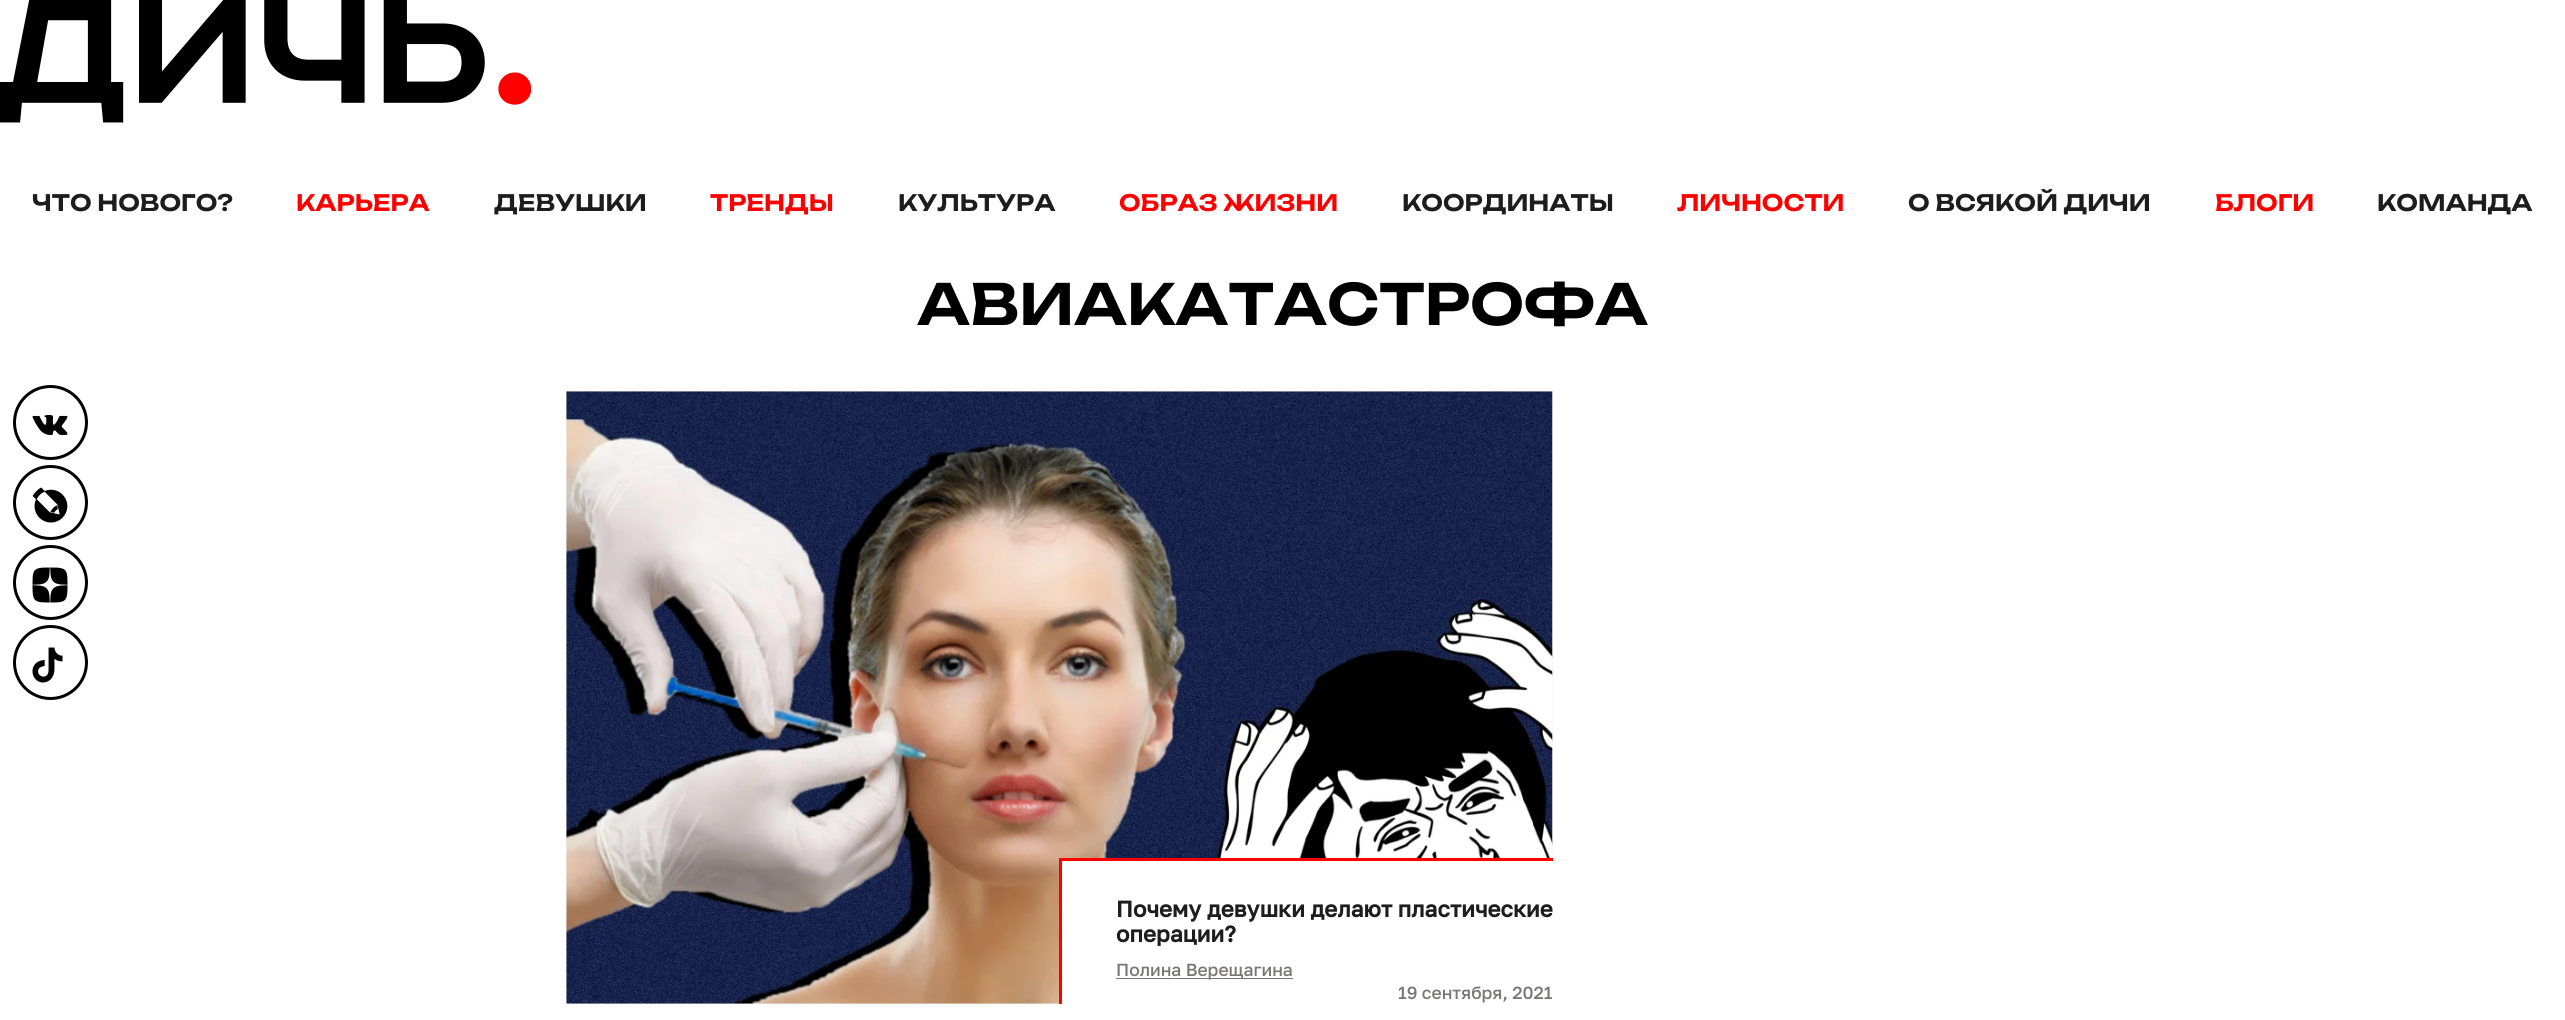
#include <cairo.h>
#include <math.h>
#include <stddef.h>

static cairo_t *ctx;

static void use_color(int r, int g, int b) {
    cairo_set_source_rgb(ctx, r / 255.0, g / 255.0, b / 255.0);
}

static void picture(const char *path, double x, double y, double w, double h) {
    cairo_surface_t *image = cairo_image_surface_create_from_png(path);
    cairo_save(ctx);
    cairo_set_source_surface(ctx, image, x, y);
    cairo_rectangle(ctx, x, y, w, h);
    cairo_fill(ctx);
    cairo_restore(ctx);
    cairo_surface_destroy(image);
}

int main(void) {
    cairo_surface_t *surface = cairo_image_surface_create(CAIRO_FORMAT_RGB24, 2565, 1020);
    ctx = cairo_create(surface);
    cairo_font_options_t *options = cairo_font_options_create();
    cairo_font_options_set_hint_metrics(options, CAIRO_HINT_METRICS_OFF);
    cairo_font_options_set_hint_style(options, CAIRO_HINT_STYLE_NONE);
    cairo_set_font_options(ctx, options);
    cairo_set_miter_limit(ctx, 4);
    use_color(255, 255, 255);
    cairo_paint(ctx);
    picture("img1.png", 0, 0, 531, 123);
    cairo_select_font_face(ctx, "Unbounded SemiBold", CAIRO_FONT_SLANT_NORMAL, CAIRO_FONT_WEIGHT_NORMAL);
    cairo_set_font_size(ctx, 22.5);
    use_color(29, 29, 29);
    cairo_move_to(ctx, 32, 211);
    cairo_show_text(ctx, "ЧТО НОВОГО?");
    use_color(255, 0, 0);
    cairo_move_to(ctx, 296, 211);
    cairo_show_text(ctx, "КАРЬЕРА");
    use_color(29, 29, 29);
    cairo_move_to(ctx, 494, 211);
    cairo_show_text(ctx, "ДЕВУШКИ");
    use_color(255, 0, 0);
    cairo_move_to(ctx, 710, 211);
    cairo_show_text(ctx, "ТРЕНДЫ");
    use_color(29, 29, 29);
    cairo_move_to(ctx, 898, 211);
    cairo_show_text(ctx, "КУЛЬТУРА");
    use_color(255, 0, 0);
    cairo_move_to(ctx, 1119, 211);
    cairo_show_text(ctx, "ОБРАЗ ЖИЗНИ");
    use_color(29, 29, 29);
    cairo_move_to(ctx, 1402, 211);
    cairo_show_text(ctx, "КООРДИНАТЫ");
    use_color(255, 0, 0);
    cairo_move_to(ctx, 1677, 211);
    cairo_show_text(ctx, "ЛИЧНОСТИ");
    use_color(29, 29, 29);
    cairo_move_to(ctx, 1908, 211);
    cairo_show_text(ctx, "О ВСЯКОЙ ДИЧИ");
    use_color(255, 0, 0);
    cairo_move_to(ctx, 2215, 211);
    cairo_show_text(ctx, "БЛОГИ");
    use_color(29, 29, 29);
    cairo_move_to(ctx, 2377, 211);
    cairo_show_text(ctx, "КОМАНДА");
    cairo_new_path(ctx);
    cairo_arc(ctx, 50.5, 422.5, 36, 0, 2 * M_PI);
    use_color(0, 0, 0);
    cairo_set_line_width(ctx, 3);
    cairo_stroke(ctx);
    picture("img2.png", 32, 415, 36, 20);
    cairo_arc(ctx, 50.5, 502.5, 36, 0, 2 * M_PI);
    cairo_stroke(ctx);
    picture("img3.png", 32, 487, 36, 36);
    cairo_arc(ctx, 50.5, 582.5, 36, 0, 2 * M_PI);
    cairo_stroke(ctx);
    picture("img4.png", 32, 567, 36, 36);
    cairo_arc(ctx, 50.5, 662.5, 36, 0, 2 * M_PI);
    cairo_stroke(ctx);
    picture("img5.png", 32, 647, 31, 36);
    cairo_set_font_size(ctx, 56.25);
    cairo_move_to(ctx, 917, 325);
    cairo_show_text(ctx, "АВИАКАТАСТРОФА");
    use_color(247, 246, 246);
    cairo_rectangle(ctx, 566, 391, 987, 613);
    cairo_fill(ctx);
    picture("img6.png", 566, 391, 987, 613);
    use_color(255, 255, 255);
    cairo_rectangle(ctx, 1062, 861, 491, 143);
    cairo_fill(ctx);
    use_color(255, 0, 0);
    cairo_rectangle(ctx, 1059, 858, 494, 3);
    cairo_fill(ctx);
    cairo_rectangle(ctx, 1059, 858, 3, 146);
    cairo_fill(ctx);
    cairo_select_font_face(ctx, "Golos Text", CAIRO_FONT_SLANT_NORMAL, CAIRO_FONT_WEIGHT_BOLD);
    cairo_set_font_size(ctx, 22.5);
    use_color(29, 29, 29);
    cairo_move_to(ctx, 1116, 917);
    cairo_show_text(ctx, "Почему девушки делают пластические");
    cairo_save(ctx);
    cairo_rectangle(ctx, 1116, 896, 437, 50);
    cairo_clip(ctx);
    cairo_move_to(ctx, 1116, 942);
    cairo_show_text(ctx, "операции?");
    cairo_restore(ctx);
    use_color(122, 117, 117);
    cairo_rectangle(ctx, 1116, 978, 177, 1);
    cairo_fill(ctx);
    cairo_select_font_face(ctx, "Golos Text Medium", CAIRO_FONT_SLANT_NORMAL, CAIRO_FONT_WEIGHT_NORMAL);
    cairo_set_font_size(ctx, 17.5);
    cairo_move_to(ctx, 1116, 976);
    cairo_show_text(ctx, "Полина Верещагина");
    cairo_move_to(ctx, 1398, 999);
    cairo_show_text(ctx, "19 сентября, 2021");
    cairo_surface_write_to_png(surface, "result.png");
    cairo_font_options_destroy(options);
    cairo_destroy(ctx);
    cairo_surface_destroy(surface);
    return 0;
}
